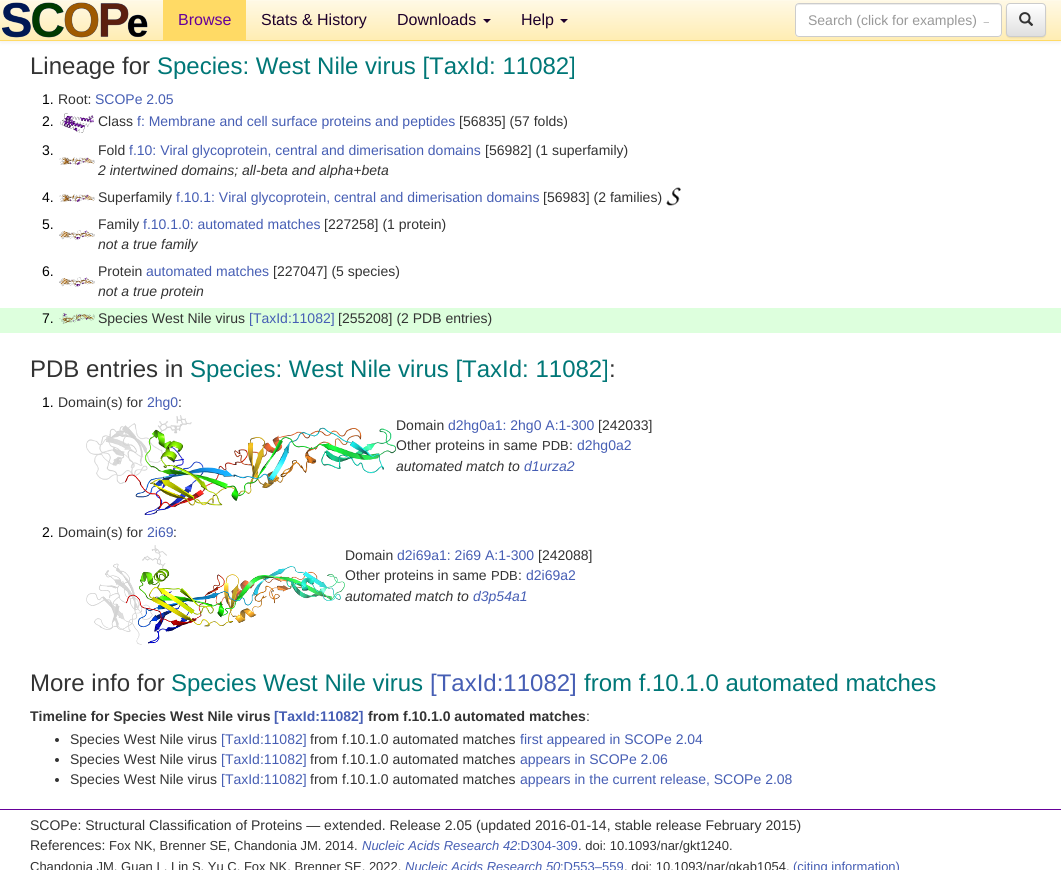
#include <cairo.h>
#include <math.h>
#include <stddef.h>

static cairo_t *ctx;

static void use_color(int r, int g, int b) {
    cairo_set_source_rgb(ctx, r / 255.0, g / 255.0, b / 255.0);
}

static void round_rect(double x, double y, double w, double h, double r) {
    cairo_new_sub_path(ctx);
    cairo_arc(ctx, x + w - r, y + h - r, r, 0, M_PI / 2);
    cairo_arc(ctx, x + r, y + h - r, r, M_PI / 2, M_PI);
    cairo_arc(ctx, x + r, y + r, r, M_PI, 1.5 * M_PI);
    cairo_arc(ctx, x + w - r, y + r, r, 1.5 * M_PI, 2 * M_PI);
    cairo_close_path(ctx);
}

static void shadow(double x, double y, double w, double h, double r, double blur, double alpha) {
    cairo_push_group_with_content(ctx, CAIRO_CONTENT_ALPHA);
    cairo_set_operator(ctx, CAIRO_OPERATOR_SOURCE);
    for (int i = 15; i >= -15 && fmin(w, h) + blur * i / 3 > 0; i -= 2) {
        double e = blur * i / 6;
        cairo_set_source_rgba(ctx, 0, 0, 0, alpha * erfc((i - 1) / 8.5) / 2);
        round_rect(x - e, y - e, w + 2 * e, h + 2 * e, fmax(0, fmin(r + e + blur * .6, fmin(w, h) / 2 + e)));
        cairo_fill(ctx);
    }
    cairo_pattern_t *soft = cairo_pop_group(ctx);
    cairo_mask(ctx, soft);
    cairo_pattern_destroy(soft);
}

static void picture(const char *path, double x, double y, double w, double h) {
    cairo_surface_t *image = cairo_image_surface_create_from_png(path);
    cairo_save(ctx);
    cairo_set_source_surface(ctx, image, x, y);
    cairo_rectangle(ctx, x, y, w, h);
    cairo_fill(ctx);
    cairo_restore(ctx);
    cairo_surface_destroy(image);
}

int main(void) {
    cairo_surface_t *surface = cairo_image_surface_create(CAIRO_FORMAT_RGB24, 1061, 870);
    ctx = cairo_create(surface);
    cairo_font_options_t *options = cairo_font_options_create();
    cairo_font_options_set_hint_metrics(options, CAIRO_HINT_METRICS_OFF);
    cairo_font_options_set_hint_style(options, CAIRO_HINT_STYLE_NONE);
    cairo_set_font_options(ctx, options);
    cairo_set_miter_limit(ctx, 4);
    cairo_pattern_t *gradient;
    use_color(255, 255, 255);
    cairo_paint(ctx);
    use_color(0, 0, 0);
    shadow(0, 1, 1061, 41, 0, 2.5, 0.07);
    gradient = cairo_pattern_create_linear(531, 0, 531, 40);
    cairo_pattern_add_color_stop_rgba(gradient, 0, 1, 0.976, 0.902, 1);
    cairo_pattern_add_color_stop_rgba(gradient, 1, 1, 0.929, 0.702, 1);
    cairo_set_source(ctx, gradient);
    cairo_pattern_destroy(gradient);
    cairo_rectangle(ctx, 0, 1, 1061, 39);
    cairo_fill(ctx);
    use_color(255, 250, 233);
    cairo_rectangle(ctx, 0, 0, 1061, 1);
    cairo_fill(ctx);
    use_color(255, 218, 101);
    cairo_rectangle(ctx, 0, 40, 1061, 1);
    cairo_fill(ctx);
    picture("img1.png", 2, 2, 146, 36);
    cairo_rectangle(ctx, 163, 0, 83, 40);
    cairo_fill(ctx);
    cairo_select_font_face(ctx, "Liberation Sans", CAIRO_FONT_SLANT_NORMAL, CAIRO_FONT_WEIGHT_NORMAL);
    cairo_set_font_size(ctx, 16);
    use_color(102, 0, 153);
    cairo_move_to(ctx, 178, 25);
    cairo_show_text(ctx, "Browse");
    use_color(29, 0, 43);
    cairo_move_to(ctx, 261, 25);
    cairo_show_text(ctx, "Stats & History");
    cairo_move_to(ctx, 397, 25);
    cairo_show_text(ctx, "Downloads");
    cairo_new_path(ctx);
    cairo_move_to(ctx, 483, 19);
    cairo_line_to(ctx, 491, 19);
    cairo_line_to(ctx, 487, 23);
    cairo_close_path(ctx);
    cairo_fill(ctx);
    cairo_move_to(ctx, 521, 25);
    cairo_show_text(ctx, "Help");
    cairo_new_path(ctx);
    cairo_move_to(ctx, 560, 19);
    cairo_line_to(ctx, 568, 19);
    cairo_line_to(ctx, 564, 23);
    cairo_close_path(ctx);
    cairo_fill(ctx);
    use_color(255, 255, 255);
    round_rect(795, 3, 207, 34, 4);
    cairo_fill(ctx);
    use_color(236, 236, 236);
    cairo_new_path(ctx);
    cairo_move_to(ctx, 799, 5);
    cairo_line_to(ctx, 998, 5);
    cairo_curve_to(ctx, 1000, 5, 1001, 6, 1001, 8);
    cairo_curve_to(ctx, 1001, 6, 1000, 4, 998, 4);
    cairo_line_to(ctx, 799, 4);
    cairo_curve_to(ctx, 797, 4, 796, 6, 796, 8);
    cairo_curve_to(ctx, 796, 6, 797, 5, 799, 5);
    cairo_close_path(ctx);
    cairo_fill(ctx);
    round_rect(795.5, 3.5, 206, 33, 3.5);
    use_color(204, 204, 204);
    cairo_set_line_width(ctx, 1);
    cairo_stroke(ctx);
    cairo_save(ctx);
    cairo_rectangle(ctx, 808, 12, 181, 16);
    cairo_clip(ctx);
    cairo_set_font_size(ctx, 14);
    use_color(153, 153, 153);
    cairo_move_to(ctx, 808, 25);
    cairo_show_text(ctx, "Search (click for examples) →");
    cairo_restore(ctx);
    use_color(0, 0, 0);
    shadow(1006, 4, 40, 34, 4, 0.5, 0.07);
    cairo_save(ctx);
    round_rect(1006, 3, 40, 34, 4);
    cairo_clip(ctx);
    gradient = cairo_pattern_create_linear(1026, 4, 1026, 36);
    cairo_pattern_add_color_stop_rgba(gradient, 0, 1, 1, 1, 1);
    cairo_pattern_add_color_stop_rgba(gradient, 1, 0.878, 0.878, 0.878, 1);
    cairo_set_source(ctx, gradient);
    cairo_pattern_destroy(gradient);
    cairo_rectangle(ctx, 1006, 4, 40, 32);
    cairo_fill(ctx);
    cairo_restore(ctx);
    round_rect(1006.5, 3.5, 39, 33, 3.5);
    use_color(204, 204, 204);
    cairo_stroke(ctx);
    picture("img2.png", 1019, 12, 15, 14);
    cairo_set_font_size(ctx, 24);
    use_color(51, 51, 51);
    cairo_move_to(ctx, 30, 74);
    cairo_show_text(ctx, "Lineage for");
    use_color(0, 119, 119);
    cairo_move_to(ctx, 157, 74);
    cairo_show_text(ctx, "Species: West Nile virus [TaxId: 11082]");
    cairo_set_font_size(ctx, 14);
    use_color(0, 0, 0);
    cairo_move_to(ctx, 42, 104);
    cairo_show_text(ctx, "1.");
    use_color(51, 51, 51);
    cairo_move_to(ctx, 58, 104);
    cairo_show_text(ctx, "Root:");
    use_color(70, 94, 180);
    cairo_move_to(ctx, 95, 104);
    cairo_show_text(ctx, "SCOPe 2.05");
    use_color(0, 0, 0);
    cairo_move_to(ctx, 42, 126);
    cairo_show_text(ctx, "2.");
    picture("img3.png", 60, 113, 34, 20);
    use_color(51, 51, 51);
    cairo_move_to(ctx, 98, 126);
    cairo_show_text(ctx, "Class");
    use_color(70, 94, 180);
    cairo_move_to(ctx, 137, 126);
    cairo_show_text(ctx, "f: Membrane and cell surface proteins and peptides");
    use_color(51, 51, 51);
    cairo_move_to(ctx, 459, 126);
    cairo_show_text(ctx, "[56835] (57 folds)");
    use_color(0, 0, 0);
    cairo_move_to(ctx, 42, 155);
    cairo_show_text(ctx, "3.");
    picture("img4.png", 59, 157, 36, 8);
    use_color(51, 51, 51);
    cairo_move_to(ctx, 98, 155);
    cairo_show_text(ctx, "Fold");
    use_color(70, 94, 180);
    cairo_move_to(ctx, 129, 155);
    cairo_show_text(ctx, "f.10: Viral glycoprotein, central and dimerisation domains");
    use_color(51, 51, 51);
    cairo_move_to(ctx, 485, 155);
    cairo_show_text(ctx, "[56982] (1 superfamily)");
    cairo_select_font_face(ctx, "Liberation Sans", CAIRO_FONT_SLANT_ITALIC, CAIRO_FONT_WEIGHT_NORMAL);
    cairo_move_to(ctx, 98, 175);
    cairo_show_text(ctx, "2 intertwined domains; all-beta and alpha+beta");
    cairo_select_font_face(ctx, "Liberation Sans", CAIRO_FONT_SLANT_NORMAL, CAIRO_FONT_WEIGHT_NORMAL);
    use_color(0, 0, 0);
    cairo_move_to(ctx, 42, 202);
    cairo_show_text(ctx, "4.");
    picture("img4.png", 59, 194, 36, 8);
    use_color(51, 51, 51);
    cairo_move_to(ctx, 98, 202);
    cairo_show_text(ctx, "Superfamily");
    use_color(70, 94, 180);
    cairo_move_to(ctx, 176, 202);
    cairo_show_text(ctx, "f.10.1: Viral glycoprotein, central and dimerisation domains");
    use_color(51, 51, 51);
    cairo_move_to(ctx, 543, 202);
    cairo_show_text(ctx, "[56983] (2 families)");
    picture("img5.png", 666, 187, 15, 19);
    use_color(0, 0, 0);
    cairo_move_to(ctx, 42, 229);
    cairo_show_text(ctx, "5.");
    picture("img6.png", 59, 230, 36, 10);
    use_color(51, 51, 51);
    cairo_move_to(ctx, 98, 229);
    cairo_show_text(ctx, "Family");
    use_color(70, 94, 180);
    cairo_move_to(ctx, 143, 229);
    cairo_show_text(ctx, "f.10.1.0: automated matches");
    use_color(51, 51, 51);
    cairo_move_to(ctx, 324, 229);
    cairo_show_text(ctx, "[227258] (1 protein)");
    cairo_select_font_face(ctx, "Liberation Sans", CAIRO_FONT_SLANT_ITALIC, CAIRO_FONT_WEIGHT_NORMAL);
    cairo_move_to(ctx, 98, 249);
    cairo_show_text(ctx, "not a true family");
    cairo_select_font_face(ctx, "Liberation Sans", CAIRO_FONT_SLANT_NORMAL, CAIRO_FONT_WEIGHT_NORMAL);
    use_color(0, 0, 0);
    cairo_move_to(ctx, 42, 276);
    cairo_show_text(ctx, "6.");
    picture("img6.png", 59, 277, 36, 10);
    use_color(51, 51, 51);
    cairo_move_to(ctx, 98, 276);
    cairo_show_text(ctx, "Protein");
    use_color(70, 94, 180);
    cairo_move_to(ctx, 146, 276);
    cairo_show_text(ctx, "automated matches");
    use_color(51, 51, 51);
    cairo_move_to(ctx, 273, 276);
    cairo_show_text(ctx, "[227047] (5 species)");
    cairo_select_font_face(ctx, "Liberation Sans", CAIRO_FONT_SLANT_ITALIC, CAIRO_FONT_WEIGHT_NORMAL);
    cairo_move_to(ctx, 98, 296);
    cairo_show_text(ctx, "not a true protein");
    use_color(221, 255, 221);
    cairo_rectangle(ctx, 0, 308, 1061, 25);
    cairo_fill(ctx);
    cairo_select_font_face(ctx, "Liberation Sans", CAIRO_FONT_SLANT_NORMAL, CAIRO_FONT_WEIGHT_NORMAL);
    use_color(0, 0, 0);
    cairo_move_to(ctx, 42, 323);
    cairo_show_text(ctx, "7.");
    picture("img7.png", 59, 313, 36, 11);
    use_color(51, 51, 51);
    cairo_move_to(ctx, 98, 323);
    cairo_show_text(ctx, "Species West Nile virus");
    use_color(70, 94, 180);
    cairo_move_to(ctx, 249, 323);
    cairo_show_text(ctx, "[TaxId:11082]");
    use_color(51, 51, 51);
    cairo_move_to(ctx, 338, 323);
    cairo_show_text(ctx, "[255208] (2 PDB entries)");
    cairo_set_font_size(ctx, 24);
    cairo_move_to(ctx, 30, 377);
    cairo_show_text(ctx, "PDB entries in");
    use_color(0, 119, 119);
    cairo_move_to(ctx, 190, 377);
    cairo_show_text(ctx, "Species: West Nile virus [TaxId: 11082]");
    use_color(51, 51, 51);
    cairo_move_to(ctx, 609, 377);
    cairo_show_text(ctx, ":");
    cairo_set_font_size(ctx, 14);
    use_color(0, 0, 0);
    cairo_move_to(ctx, 42, 407);
    cairo_show_text(ctx, "1.");
    use_color(51, 51, 51);
    cairo_move_to(ctx, 58, 407);
    cairo_show_text(ctx, "Domain(s) for");
    use_color(70, 94, 180);
    cairo_move_to(ctx, 147, 407);
    cairo_show_text(ctx, "2hg0");
    use_color(51, 51, 51);
    cairo_move_to(ctx, 178, 407);
    cairo_show_text(ctx, ":");
    picture("img8.png", 86, 415, 310, 100);
    cairo_move_to(ctx, 396, 430);
    cairo_show_text(ctx, "Domain");
    use_color(70, 94, 180);
    cairo_move_to(ctx, 448, 430);
    cairo_show_text(ctx, "d2hg0a1: 2hg0 A:1-300");
    use_color(51, 51, 51);
    cairo_move_to(ctx, 598, 430);
    cairo_show_text(ctx, "[242033]");
    cairo_move_to(ctx, 396, 450);
    cairo_show_text(ctx, "Other proteins in same");
    cairo_set_font_size(ctx, 13);
    cairo_move_to(ctx, 542, 450);
    cairo_show_text(ctx, "PDB");
    cairo_set_font_size(ctx, 14);
    cairo_move_to(ctx, 569, 450);
    cairo_show_text(ctx, ":");
    use_color(70, 94, 180);
    cairo_move_to(ctx, 577, 450);
    cairo_show_text(ctx, "d2hg0a2");
    cairo_select_font_face(ctx, "Liberation Sans", CAIRO_FONT_SLANT_ITALIC, CAIRO_FONT_WEIGHT_NORMAL);
    use_color(51, 51, 51);
    cairo_move_to(ctx, 396, 471);
    cairo_show_text(ctx, "automated match to");
    use_color(70, 94, 180);
    cairo_move_to(ctx, 524, 471);
    cairo_show_text(ctx, "d1urza2");
    cairo_select_font_face(ctx, "Liberation Sans", CAIRO_FONT_SLANT_NORMAL, CAIRO_FONT_WEIGHT_NORMAL);
    use_color(0, 0, 0);
    cairo_move_to(ctx, 42, 537);
    cairo_show_text(ctx, "2.");
    use_color(51, 51, 51);
    cairo_move_to(ctx, 58, 537);
    cairo_show_text(ctx, "Domain(s) for");
    use_color(70, 94, 180);
    cairo_move_to(ctx, 147, 537);
    cairo_show_text(ctx, "2i69");
    use_color(51, 51, 51);
    cairo_move_to(ctx, 173, 537);
    cairo_show_text(ctx, ":");
    picture("img9.png", 86, 545, 259, 100);
    cairo_move_to(ctx, 345, 560);
    cairo_show_text(ctx, "Domain");
    use_color(70, 94, 180);
    cairo_move_to(ctx, 397, 560);
    cairo_show_text(ctx, "d2i69a1: 2i69 A:1-300");
    use_color(51, 51, 51);
    cairo_move_to(ctx, 538, 560);
    cairo_show_text(ctx, "[242088]");
    cairo_move_to(ctx, 345, 580);
    cairo_show_text(ctx, "Other proteins in same");
    cairo_set_font_size(ctx, 13);
    cairo_move_to(ctx, 491, 580);
    cairo_show_text(ctx, "PDB");
    cairo_set_font_size(ctx, 14);
    cairo_move_to(ctx, 518, 580);
    cairo_show_text(ctx, ":");
    use_color(70, 94, 180);
    cairo_move_to(ctx, 526, 580);
    cairo_show_text(ctx, "d2i69a2");
    cairo_select_font_face(ctx, "Liberation Sans", CAIRO_FONT_SLANT_ITALIC, CAIRO_FONT_WEIGHT_NORMAL);
    use_color(51, 51, 51);
    cairo_move_to(ctx, 345, 601);
    cairo_show_text(ctx, "automated match to");
    use_color(70, 94, 180);
    cairo_move_to(ctx, 473, 601);
    cairo_show_text(ctx, "d3p54a1");
    cairo_select_font_face(ctx, "Liberation Sans", CAIRO_FONT_SLANT_NORMAL, CAIRO_FONT_WEIGHT_NORMAL);
    cairo_set_font_size(ctx, 24);
    use_color(51, 51, 51);
    cairo_move_to(ctx, 30, 691);
    cairo_show_text(ctx, "More info for");
    use_color(0, 119, 119);
    cairo_move_to(ctx, 171, 691);
    cairo_show_text(ctx, "Species West Nile virus");
    use_color(70, 94, 180);
    cairo_move_to(ctx, 430, 691);
    cairo_show_text(ctx, "[TaxId:11082]");
    use_color(0, 119, 119);
    cairo_move_to(ctx, 584, 691);
    cairo_show_text(ctx, "from f.10.1.0 automated matches");
    cairo_select_font_face(ctx, "Liberation Sans", CAIRO_FONT_SLANT_NORMAL, CAIRO_FONT_WEIGHT_BOLD);
    cairo_set_font_size(ctx, 14);
    use_color(51, 51, 51);
    cairo_move_to(ctx, 30, 721);
    cairo_show_text(ctx, "Timeline for Species West Nile virus");
    use_color(70, 94, 180);
    cairo_move_to(ctx, 274, 721);
    cairo_show_text(ctx, "[TaxId:11082]");
    use_color(51, 51, 51);
    cairo_move_to(ctx, 368, 721);
    cairo_show_text(ctx, "from f.10.1.0 automated matches");
    cairo_select_font_face(ctx, "Liberation Sans", CAIRO_FONT_SLANT_NORMAL, CAIRO_FONT_WEIGHT_NORMAL);
    cairo_move_to(ctx, 586, 721);
    cairo_show_text(ctx, ":");
    cairo_new_path(ctx);
    cairo_arc(ctx, 57, 740, 2, 0, 2 * M_PI);
    cairo_fill(ctx);
    cairo_move_to(ctx, 70, 744);
    cairo_show_text(ctx, "Species West Nile virus");
    use_color(70, 94, 180);
    cairo_move_to(ctx, 221, 744);
    cairo_show_text(ctx, "[TaxId:11082]");
    use_color(51, 51, 51);
    cairo_move_to(ctx, 310, 744);
    cairo_show_text(ctx, "from f.10.1.0 automated matches");
    use_color(70, 94, 180);
    cairo_move_to(ctx, 520, 744);
    cairo_show_text(ctx, "first appeared in SCOPe 2.04");
    use_color(51, 51, 51);
    cairo_new_path(ctx);
    cairo_arc(ctx, 57, 760, 2, 0, 2 * M_PI);
    cairo_fill(ctx);
    cairo_move_to(ctx, 70, 764);
    cairo_show_text(ctx, "Species West Nile virus");
    use_color(70, 94, 180);
    cairo_move_to(ctx, 221, 764);
    cairo_show_text(ctx, "[TaxId:11082]");
    use_color(51, 51, 51);
    cairo_move_to(ctx, 310, 764);
    cairo_show_text(ctx, "from f.10.1.0 automated matches");
    use_color(70, 94, 180);
    cairo_move_to(ctx, 520, 764);
    cairo_show_text(ctx, "appears in SCOPe 2.06");
    use_color(51, 51, 51);
    cairo_new_path(ctx);
    cairo_arc(ctx, 57, 780, 2, 0, 2 * M_PI);
    cairo_fill(ctx);
    cairo_move_to(ctx, 70, 784);
    cairo_show_text(ctx, "Species West Nile virus");
    use_color(70, 94, 180);
    cairo_move_to(ctx, 221, 784);
    cairo_show_text(ctx, "[TaxId:11082]");
    use_color(51, 51, 51);
    cairo_move_to(ctx, 310, 784);
    cairo_show_text(ctx, "from f.10.1.0 automated matches");
    use_color(70, 94, 180);
    cairo_move_to(ctx, 520, 784);
    cairo_show_text(ctx, "appears in the current release, SCOPe 2.08");
    use_color(102, 0, 153);
    cairo_rectangle(ctx, 0, 809, 1061, 1);
    cairo_fill(ctx);
    use_color(51, 51, 51);
    cairo_move_to(ctx, 30, 830);
    cairo_show_text(ctx, "SCOPe: Structural Classification of Proteins — extended. Release 2.05 (updated 2016-01-14, stable release February 2015)");
    cairo_move_to(ctx, 30, 850);
    cairo_show_text(ctx, "References:");
    cairo_set_font_size(ctx, 13);
    cairo_move_to(ctx, 109, 850);
    cairo_show_text(ctx, "Fox NK, Brenner SE, Chandonia JM. 2014.");
    cairo_select_font_face(ctx, "Liberation Sans", CAIRO_FONT_SLANT_ITALIC, CAIRO_FONT_WEIGHT_NORMAL);
    use_color(70, 94, 180);
    cairo_move_to(ctx, 362, 850);
    cairo_show_text(ctx, "Nucleic Acids Research 42");
    cairo_select_font_face(ctx, "Liberation Sans", CAIRO_FONT_SLANT_NORMAL, CAIRO_FONT_WEIGHT_NORMAL);
    cairo_move_to(ctx, 517, 850);
    cairo_show_text(ctx, ":D304-309");
    use_color(51, 51, 51);
    cairo_move_to(ctx, 578, 850);
    cairo_show_text(ctx, ". doi: 10.1093/nar/gkt1240.");
    cairo_move_to(ctx, 30, 871);
    cairo_show_text(ctx, "Chandonia JM, Guan L, Lin S, Yu C, Fox NK, Brenner SE. 2022.");
    cairo_select_font_face(ctx, "Liberation Sans", CAIRO_FONT_SLANT_ITALIC, CAIRO_FONT_WEIGHT_NORMAL);
    use_color(70, 94, 180);
    cairo_move_to(ctx, 405, 871);
    cairo_show_text(ctx, "Nucleic Acids Research 50");
    cairo_select_font_face(ctx, "Liberation Sans", CAIRO_FONT_SLANT_NORMAL, CAIRO_FONT_WEIGHT_NORMAL);
    cairo_move_to(ctx, 560, 871);
    cairo_show_text(ctx, ":D553–559");
    use_color(51, 51, 51);
    cairo_move_to(ctx, 624, 871);
    cairo_show_text(ctx, ". doi: 10.1093/nar/gkab1054.");
    use_color(70, 94, 180);
    cairo_move_to(ctx, 793, 871);
    cairo_show_text(ctx, "(citing information)");
    cairo_surface_write_to_png(surface, "result.png");
    cairo_font_options_destroy(options);
    cairo_destroy(ctx);
    cairo_surface_destroy(surface);
    return 0;
}
